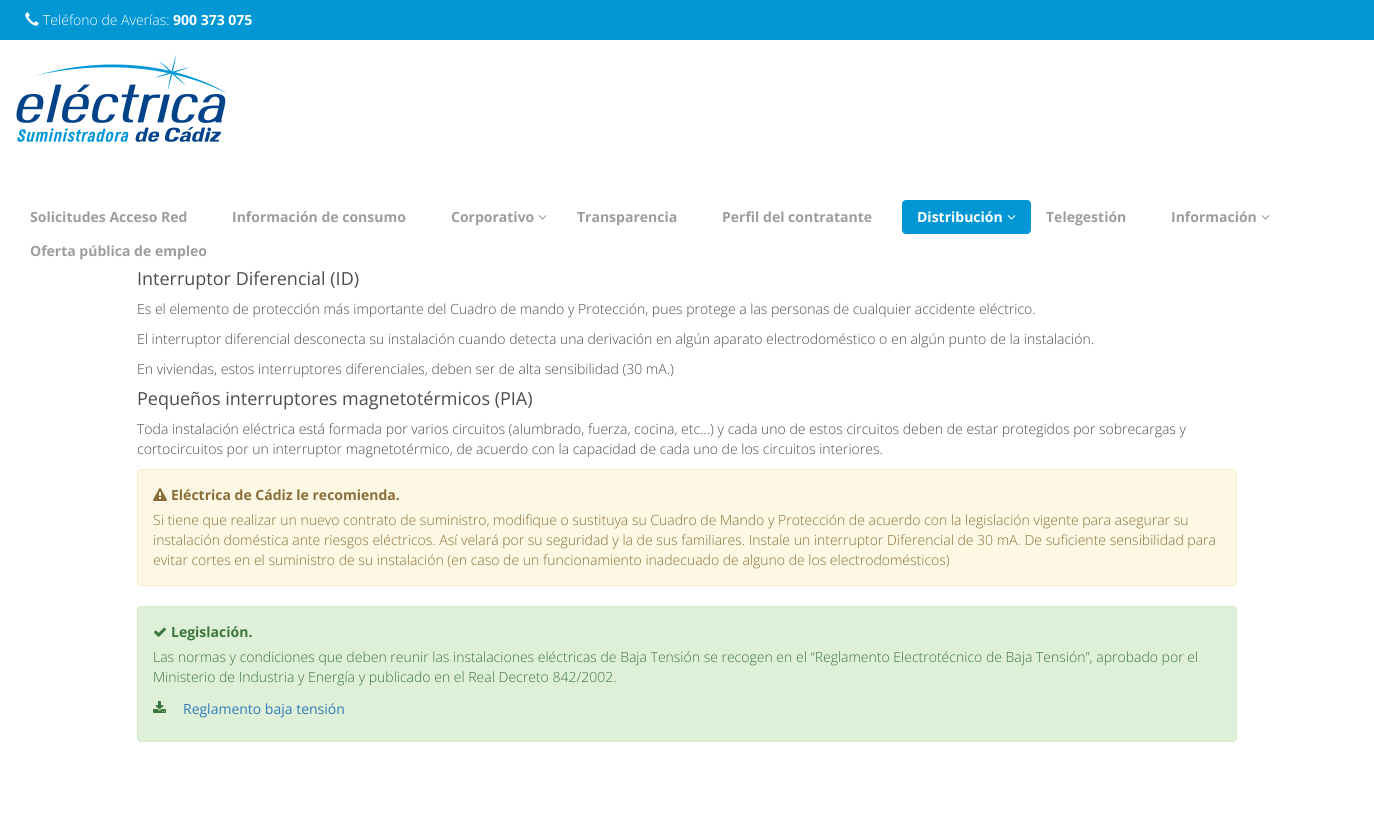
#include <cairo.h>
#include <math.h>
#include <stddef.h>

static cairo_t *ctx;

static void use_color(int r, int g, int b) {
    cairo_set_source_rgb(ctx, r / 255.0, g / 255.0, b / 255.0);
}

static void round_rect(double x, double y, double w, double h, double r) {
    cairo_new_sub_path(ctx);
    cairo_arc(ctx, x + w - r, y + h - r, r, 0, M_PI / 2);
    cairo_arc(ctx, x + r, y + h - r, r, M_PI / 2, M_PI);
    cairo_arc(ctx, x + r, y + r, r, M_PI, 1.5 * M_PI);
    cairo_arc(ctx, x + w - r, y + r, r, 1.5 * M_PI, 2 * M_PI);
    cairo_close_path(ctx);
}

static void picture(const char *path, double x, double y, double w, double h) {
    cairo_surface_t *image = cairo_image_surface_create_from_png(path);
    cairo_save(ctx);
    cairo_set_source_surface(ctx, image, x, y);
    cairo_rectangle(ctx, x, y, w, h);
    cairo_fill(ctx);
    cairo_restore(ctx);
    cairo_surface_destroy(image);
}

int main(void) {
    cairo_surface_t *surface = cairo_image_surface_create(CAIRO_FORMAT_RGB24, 1374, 831);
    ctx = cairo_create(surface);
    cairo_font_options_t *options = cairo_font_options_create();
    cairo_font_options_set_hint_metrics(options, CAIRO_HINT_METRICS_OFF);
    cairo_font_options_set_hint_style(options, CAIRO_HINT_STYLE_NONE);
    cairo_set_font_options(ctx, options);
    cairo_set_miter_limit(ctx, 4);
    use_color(255, 255, 255);
    cairo_paint(ctx);
    use_color(0, 151, 212);
    cairo_rectangle(ctx, 0, 0, 1374, 40);
    cairo_fill(ctx);
    picture("img1.png", 25, 12, 14, 14);
    cairo_select_font_face(ctx, "Open Sans Light", CAIRO_FONT_SLANT_NORMAL, CAIRO_FONT_WEIGHT_NORMAL);
    cairo_set_font_size(ctx, 14);
    use_color(255, 255, 255);
    cairo_move_to(ctx, 43, 25);
    cairo_show_text(ctx, "Teléfono de Averías:");
    cairo_select_font_face(ctx, "Open Sans", CAIRO_FONT_SLANT_NORMAL, CAIRO_FONT_WEIGHT_BOLD);
    cairo_move_to(ctx, 173, 25);
    cairo_show_text(ctx, "900 373 075");
    picture("img2.png", 16, 55, 211, 87);
    use_color(157, 157, 157);
    cairo_move_to(ctx, 30, 222);
    cairo_show_text(ctx, "Solicitudes Acceso Red");
    cairo_move_to(ctx, 232, 222);
    cairo_show_text(ctx, "Información de consumo");
    cairo_move_to(ctx, 451, 222);
    cairo_show_text(ctx, "Corporativo");
    picture("img3.png", 538, 215, 9, 5);
    cairo_move_to(ctx, 577, 222);
    cairo_show_text(ctx, "Transparencia");
    cairo_move_to(ctx, 722, 222);
    cairo_show_text(ctx, "Perfil del contratante");
    use_color(0, 151, 212);
    round_rect(902, 200, 129, 34, 4);
    cairo_fill(ctx);
    use_color(255, 255, 255);
    cairo_move_to(ctx, 917, 222);
    cairo_show_text(ctx, "Distribución");
    picture("img4.png", 1007, 215, 9, 5);
    use_color(157, 157, 157);
    cairo_move_to(ctx, 1046, 222);
    cairo_show_text(ctx, "Telegestión");
    cairo_move_to(ctx, 1171, 222);
    cairo_show_text(ctx, "Información");
    picture("img3.png", 1261, 215, 9, 5);
    cairo_move_to(ctx, 30, 256);
    cairo_show_text(ctx, "Oferta pública de empleo");
    cairo_select_font_face(ctx, "Open Sans", CAIRO_FONT_SLANT_NORMAL, CAIRO_FONT_WEIGHT_NORMAL);
    cairo_set_font_size(ctx, 18);
    use_color(76, 76, 76);
    cairo_move_to(ctx, 137, 285);
    cairo_show_text(ctx, "Interruptor Diferencial (ID)");
    cairo_select_font_face(ctx, "Open Sans Light", CAIRO_FONT_SLANT_NORMAL, CAIRO_FONT_WEIGHT_NORMAL);
    cairo_set_font_size(ctx, 14);
    cairo_move_to(ctx, 137, 314);
    cairo_show_text(ctx, "Es el elemento de protección más importante del Cuadro de mando y Protección, pues protege a las personas de cualquier accidente eléctrico.");
    cairo_move_to(ctx, 137, 344);
    cairo_show_text(ctx, "El interruptor diferencial desconecta su instalación cuando detecta una derivación en algún aparato electrodoméstico o en algún punto de la instalación.");
    cairo_move_to(ctx, 137, 374);
    cairo_show_text(ctx, "En viviendas, estos interruptores diferenciales, deben ser de alta sensibilidad (30 mA.)");
    cairo_select_font_face(ctx, "Open Sans", CAIRO_FONT_SLANT_NORMAL, CAIRO_FONT_WEIGHT_NORMAL);
    cairo_set_font_size(ctx, 18);
    cairo_move_to(ctx, 137, 405);
    cairo_show_text(ctx, "Pequeños interruptores magnetotérmicos (PIA)");
    cairo_select_font_face(ctx, "Open Sans Light", CAIRO_FONT_SLANT_NORMAL, CAIRO_FONT_WEIGHT_NORMAL);
    cairo_set_font_size(ctx, 14);
    cairo_move_to(ctx, 137, 434);
    cairo_show_text(ctx, "Toda instalación eléctrica está formada por varios circuitos (alumbrado, fuerza, cocina, etc…) y cada uno de estos circuitos deben de estar protegidos por sobrecargas y");
    cairo_move_to(ctx, 137, 454);
    cairo_show_text(ctx, "cortocircuitos por un interruptor magnetotérmico, de acuerdo con la capacidad de cada uno de los circuitos interiores.");
    use_color(252, 248, 227);
    round_rect(137.5, 469.5, 1099, 116, 3.5);
    cairo_fill_preserve(ctx);
    use_color(250, 235, 204);
    cairo_set_line_width(ctx, 1);
    cairo_stroke(ctx);
    picture("img5.png", 153, 488, 14, 13);
    cairo_select_font_face(ctx, "Open Sans", CAIRO_FONT_SLANT_NORMAL, CAIRO_FONT_WEIGHT_BOLD);
    use_color(138, 109, 59);
    cairo_move_to(ctx, 171, 500);
    cairo_show_text(ctx, "Eléctrica de Cádiz le recomienda.");
    cairo_select_font_face(ctx, "Open Sans Light", CAIRO_FONT_SLANT_NORMAL, CAIRO_FONT_WEIGHT_NORMAL);
    cairo_move_to(ctx, 153, 525);
    cairo_show_text(ctx, "Si tiene que realizar un nuevo contrato de suministro, modifique o sustituya su Cuadro de Mando y Protección de acuerdo con la legislación vigente para asegurar su");
    cairo_move_to(ctx, 153, 545);
    cairo_show_text(ctx, "instalación doméstica ante riesgos eléctricos. Así velará por su seguridad y la de sus familiares. Instale un interruptor Diferencial de 30 mA. De suficiente sensibilidad para");
    cairo_move_to(ctx, 153, 565);
    cairo_show_text(ctx, "evitar cortes en el suministro de su instalación (en caso de un funcionamiento inadecuado de alguno de los electrodomésticos)");
    use_color(223, 240, 216);
    round_rect(137.5, 606.5, 1099, 135, 3.5);
    cairo_fill_preserve(ctx);
    use_color(214, 233, 198);
    cairo_stroke(ctx);
    picture("img6.png", 154, 627, 12, 10);
    cairo_select_font_face(ctx, "Open Sans", CAIRO_FONT_SLANT_NORMAL, CAIRO_FONT_WEIGHT_BOLD);
    use_color(60, 118, 61);
    cairo_move_to(ctx, 171, 637);
    cairo_show_text(ctx, "Legislación.");
    cairo_select_font_face(ctx, "Open Sans Light", CAIRO_FONT_SLANT_NORMAL, CAIRO_FONT_WEIGHT_NORMAL);
    cairo_move_to(ctx, 153, 662);
    cairo_show_text(ctx, "Las normas y condiciones que deben reunir las instalaciones eléctricas de Baja Tensión se recogen en el “Reglamento Electrotécnico de Baja Tensión”, aprobado por el");
    cairo_move_to(ctx, 153, 682);
    cairo_show_text(ctx, "Ministerio de Industria y Energía y publicado en el Real Decreto 842/2002.");
    picture("img7.png", 153, 701, 13, 12);
    cairo_select_font_face(ctx, "Open Sans", CAIRO_FONT_SLANT_NORMAL, CAIRO_FONT_WEIGHT_NORMAL);
    use_color(51, 122, 183);
    cairo_move_to(ctx, 183, 714);
    cairo_show_text(ctx, "Reglamento baja tensión");
    cairo_surface_write_to_png(surface, "result.png");
    cairo_font_options_destroy(options);
    cairo_destroy(ctx);
    cairo_surface_destroy(surface);
    return 0;
}
